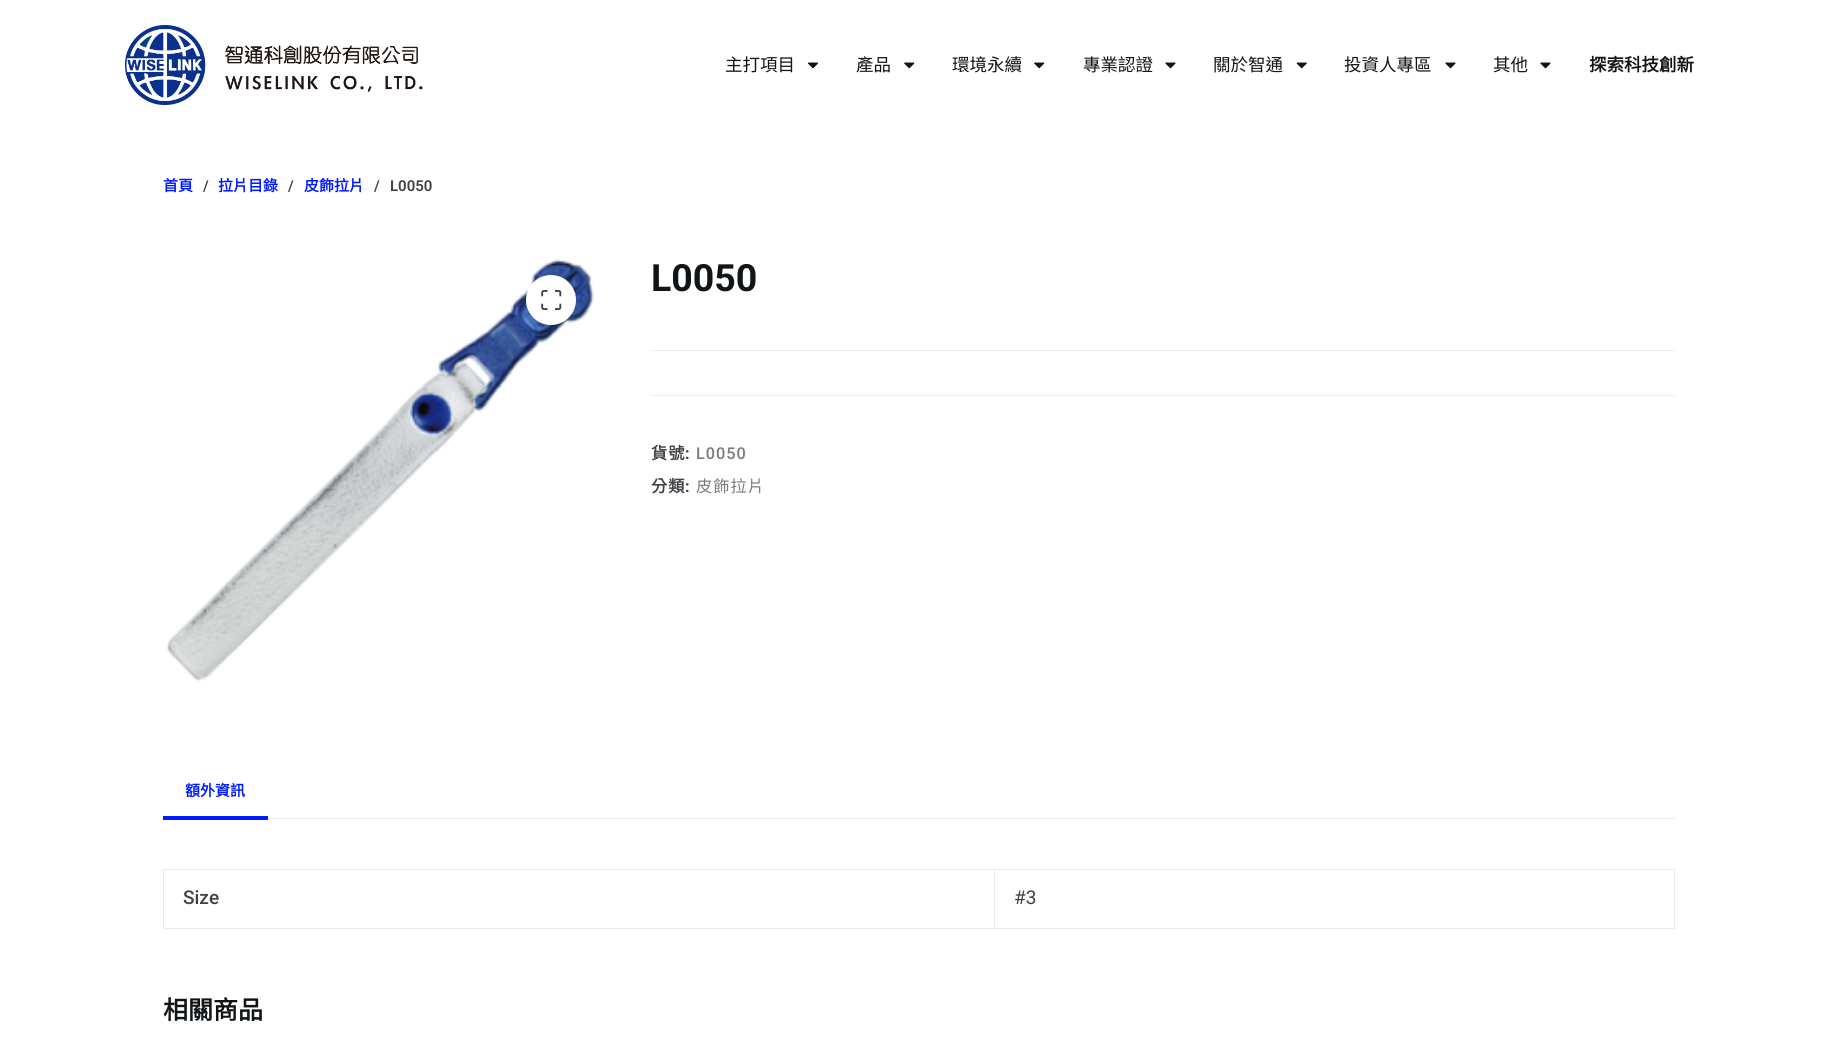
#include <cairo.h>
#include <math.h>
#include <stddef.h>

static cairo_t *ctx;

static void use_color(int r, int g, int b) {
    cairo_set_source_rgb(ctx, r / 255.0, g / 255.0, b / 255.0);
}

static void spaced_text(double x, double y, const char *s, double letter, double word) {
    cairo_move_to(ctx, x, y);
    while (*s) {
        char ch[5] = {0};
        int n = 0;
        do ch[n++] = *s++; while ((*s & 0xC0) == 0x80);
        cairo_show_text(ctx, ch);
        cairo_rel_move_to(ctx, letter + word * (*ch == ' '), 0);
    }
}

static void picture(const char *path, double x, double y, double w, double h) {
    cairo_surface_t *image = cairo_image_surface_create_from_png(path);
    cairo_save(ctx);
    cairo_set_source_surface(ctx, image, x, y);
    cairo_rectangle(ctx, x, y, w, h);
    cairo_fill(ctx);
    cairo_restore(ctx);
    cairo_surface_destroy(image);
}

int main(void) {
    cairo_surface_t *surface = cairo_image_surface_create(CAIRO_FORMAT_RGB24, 1837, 1041);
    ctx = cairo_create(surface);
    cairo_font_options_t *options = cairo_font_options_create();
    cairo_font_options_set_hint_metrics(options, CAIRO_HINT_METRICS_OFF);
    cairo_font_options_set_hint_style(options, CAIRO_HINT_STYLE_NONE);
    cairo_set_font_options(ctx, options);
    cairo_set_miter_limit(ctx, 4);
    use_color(255, 255, 255);
    cairo_paint(ctx);
    picture("img1.png", 125, 25, 298, 80);
    cairo_select_font_face(ctx, "Noto Sans CJK TC", CAIRO_FONT_SLANT_NORMAL, CAIRO_FONT_WEIGHT_NORMAL);
    cairo_set_font_size(ctx, 17.5);
    use_color(17, 21, 24);
    cairo_move_to(ctx, 725, 71);
    cairo_show_text(ctx, "主打項目");
    picture("img2.png", 807, 62, 11, 7);
    cairo_move_to(ctx, 856, 71);
    cairo_show_text(ctx, "產品");
    picture("img3.png", 904, 62, 11, 7);
    cairo_move_to(ctx, 952, 71);
    cairo_show_text(ctx, "環境永續");
    picture("img3.png", 1034, 62, 11, 7);
    cairo_move_to(ctx, 1083, 71);
    cairo_show_text(ctx, "專業認證");
    picture("img4.png", 1165, 62, 11, 7);
    cairo_move_to(ctx, 1213, 71);
    cairo_show_text(ctx, "關於智通");
    picture("img5.png", 1296, 62, 11, 7);
    cairo_move_to(ctx, 1344, 71);
    cairo_show_text(ctx, "投資人專區");
    picture("img4.png", 1445, 62, 11, 7);
    cairo_move_to(ctx, 1493, 71);
    cairo_show_text(ctx, "其他");
    picture("img4.png", 1540, 62, 11, 7);
    cairo_select_font_face(ctx, "Noto Sans CJK TC", CAIRO_FONT_SLANT_NORMAL, CAIRO_FONT_WEIGHT_BOLD);
    cairo_move_to(ctx, 1589, 71);
    cairo_show_text(ctx, "探索科技創新");
    cairo_set_font_size(ctx, 15);
    use_color(0, 26, 255);
    cairo_move_to(ctx, 163, 191);
    cairo_show_text(ctx, "首頁");
    cairo_select_font_face(ctx, "Roboto SemiBold", CAIRO_FONT_SLANT_NORMAL, CAIRO_FONT_WEIGHT_NORMAL);
    use_color(63, 66, 69);
    cairo_move_to(ctx, 203, 191);
    cairo_show_text(ctx, "/");
    cairo_select_font_face(ctx, "Noto Sans CJK TC", CAIRO_FONT_SLANT_NORMAL, CAIRO_FONT_WEIGHT_BOLD);
    use_color(0, 26, 255);
    cairo_move_to(ctx, 218, 191);
    cairo_show_text(ctx, "拉片目錄");
    cairo_select_font_face(ctx, "Roboto SemiBold", CAIRO_FONT_SLANT_NORMAL, CAIRO_FONT_WEIGHT_NORMAL);
    use_color(63, 66, 69);
    cairo_move_to(ctx, 288, 191);
    cairo_show_text(ctx, "/");
    cairo_select_font_face(ctx, "Noto Sans CJK TC", CAIRO_FONT_SLANT_NORMAL, CAIRO_FONT_WEIGHT_BOLD);
    use_color(0, 26, 255);
    cairo_move_to(ctx, 304, 191);
    cairo_show_text(ctx, "皮飾拉片");
    cairo_select_font_face(ctx, "Roboto SemiBold", CAIRO_FONT_SLANT_NORMAL, CAIRO_FONT_WEIGHT_NORMAL);
    use_color(63, 66, 69);
    cairo_move_to(ctx, 374, 191);
    cairo_show_text(ctx, "/");
    cairo_move_to(ctx, 390, 191);
    cairo_show_text(ctx, "L0050");
    picture("img6.png", 166, 259, 428, 423);
    use_color(255, 255, 255);
    cairo_arc(ctx, 551, 300, 25, 0, 2 * M_PI);
    cairo_fill(ctx);
    picture("img7.png", 541, 290, 21, 20);
    cairo_select_font_face(ctx, "Roboto", CAIRO_FONT_SLANT_NORMAL, CAIRO_FONT_WEIGHT_BOLD);
    cairo_set_font_size(ctx, 37.5);
    use_color(17, 21, 24);
    cairo_move_to(ctx, 651, 291);
    cairo_show_text(ctx, "L0050");
    use_color(234, 234, 236);
    cairo_rectangle(ctx, 651, 350, 1024, 1);
    cairo_fill(ctx);
    cairo_rectangle(ctx, 651, 395, 1024, 1);
    cairo_fill(ctx);
    cairo_select_font_face(ctx, "Noto Sans CJK TC", CAIRO_FONT_SLANT_NORMAL, CAIRO_FONT_WEIGHT_BOLD);
    cairo_set_font_size(ctx, 16.25);
    use_color(63, 66, 69);
    spaced_text(651, 459, "貨號", 1, 0);
    cairo_select_font_face(ctx, "Roboto", CAIRO_FONT_SLANT_NORMAL, CAIRO_FONT_WEIGHT_BOLD);
    spaced_text(685, 459, ":", 1, 0);
    cairo_select_font_face(ctx, "Roboto Medium", CAIRO_FONT_SLANT_NORMAL, CAIRO_FONT_WEIGHT_NORMAL);
    use_color(121, 123, 125);
    spaced_text(696, 459, "L0050", 1, 0);
    cairo_select_font_face(ctx, "Noto Sans CJK TC", CAIRO_FONT_SLANT_NORMAL, CAIRO_FONT_WEIGHT_BOLD);
    use_color(63, 66, 69);
    spaced_text(651, 492, "分類", 1, 0);
    cairo_select_font_face(ctx, "Roboto", CAIRO_FONT_SLANT_NORMAL, CAIRO_FONT_WEIGHT_BOLD);
    spaced_text(685, 492, ":", 1, 0);
    cairo_select_font_face(ctx, "Noto Sans CJK TC", CAIRO_FONT_SLANT_NORMAL, CAIRO_FONT_WEIGHT_NORMAL);
    use_color(121, 123, 125);
    spaced_text(696, 492, "皮飾拉片", 1, 0);
    use_color(234, 234, 236);
    cairo_rectangle(ctx, 268, 818, 1407, 1);
    cairo_fill(ctx);
    cairo_select_font_face(ctx, "Noto Sans CJK TC", CAIRO_FONT_SLANT_NORMAL, CAIRO_FONT_WEIGHT_BOLD);
    cairo_set_font_size(ctx, 15);
    use_color(0, 26, 255);
    cairo_move_to(ctx, 185, 796);
    cairo_show_text(ctx, "額外資訊");
    cairo_rectangle(ctx, 163, 816, 105, 4);
    cairo_fill(ctx);
    use_color(234, 234, 236);
    cairo_rectangle(ctx, 994, 869, 681, 1);
    cairo_fill(ctx);
    cairo_rectangle(ctx, 1674, 869, 1, 60);
    cairo_fill(ctx);
    cairo_rectangle(ctx, 994, 928, 681, 1);
    cairo_fill(ctx);
    cairo_rectangle(ctx, 994, 869, 1, 60);
    cairo_fill(ctx);
    cairo_rectangle(ctx, 163, 869, 832, 1);
    cairo_fill(ctx);
    cairo_rectangle(ctx, 163, 928, 832, 1);
    cairo_fill(ctx);
    cairo_rectangle(ctx, 163, 869, 1, 60);
    cairo_fill(ctx);
    cairo_select_font_face(ctx, "Roboto Medium", CAIRO_FONT_SLANT_NORMAL, CAIRO_FONT_WEIGHT_NORMAL);
    cairo_set_font_size(ctx, 19);
    use_color(63, 66, 69);
    cairo_move_to(ctx, 183, 904);
    cairo_show_text(ctx, "Size");
    cairo_select_font_face(ctx, "Roboto", CAIRO_FONT_SLANT_NORMAL, CAIRO_FONT_WEIGHT_NORMAL);
    cairo_move_to(ctx, 1014, 904);
    cairo_show_text(ctx, "#3");
    cairo_select_font_face(ctx, "Noto Sans CJK TC", CAIRO_FONT_SLANT_NORMAL, CAIRO_FONT_WEIGHT_BOLD);
    cairo_set_font_size(ctx, 25);
    use_color(17, 21, 24);
    cairo_move_to(ctx, 163, 1019);
    cairo_show_text(ctx, "相關商品");
    cairo_surface_write_to_png(surface, "result.png");
    cairo_font_options_destroy(options);
    cairo_destroy(ctx);
    cairo_surface_destroy(surface);
    return 0;
}
